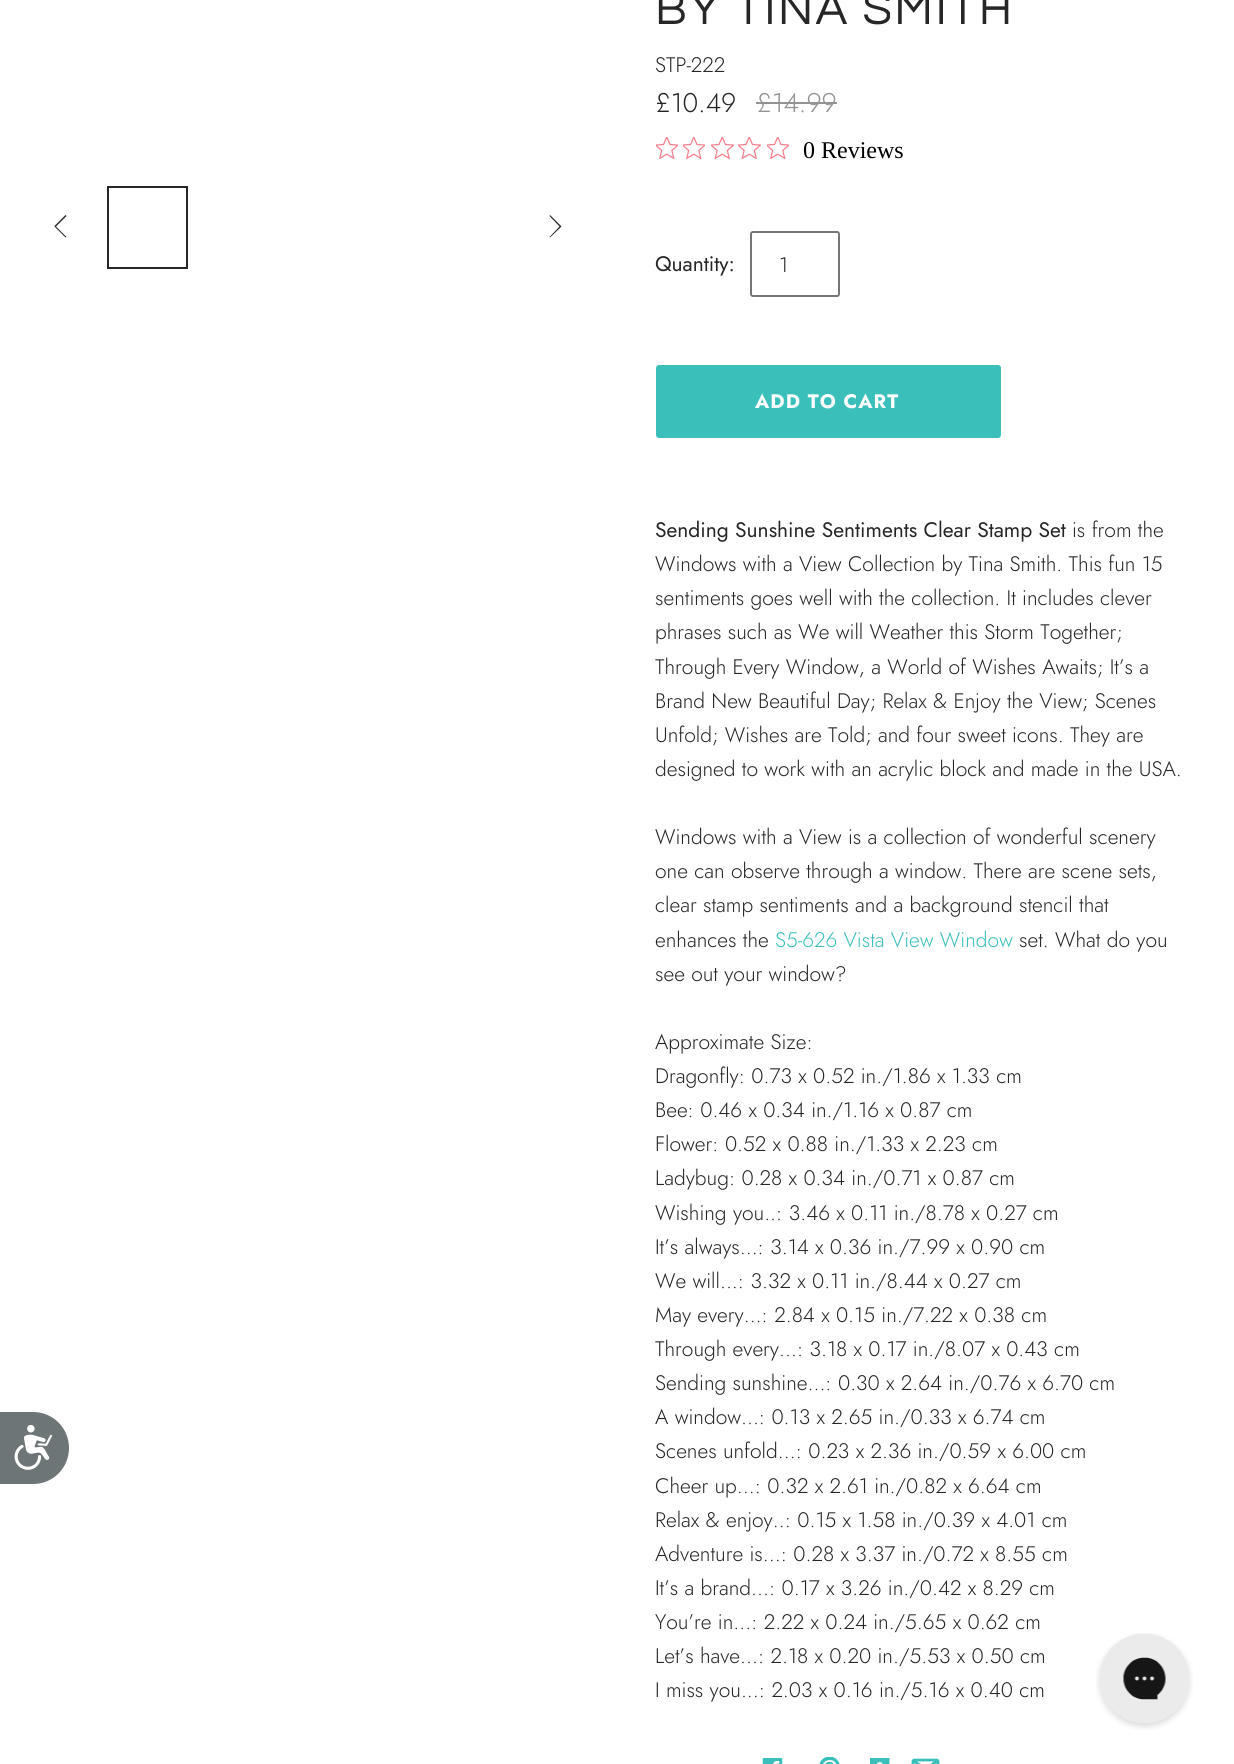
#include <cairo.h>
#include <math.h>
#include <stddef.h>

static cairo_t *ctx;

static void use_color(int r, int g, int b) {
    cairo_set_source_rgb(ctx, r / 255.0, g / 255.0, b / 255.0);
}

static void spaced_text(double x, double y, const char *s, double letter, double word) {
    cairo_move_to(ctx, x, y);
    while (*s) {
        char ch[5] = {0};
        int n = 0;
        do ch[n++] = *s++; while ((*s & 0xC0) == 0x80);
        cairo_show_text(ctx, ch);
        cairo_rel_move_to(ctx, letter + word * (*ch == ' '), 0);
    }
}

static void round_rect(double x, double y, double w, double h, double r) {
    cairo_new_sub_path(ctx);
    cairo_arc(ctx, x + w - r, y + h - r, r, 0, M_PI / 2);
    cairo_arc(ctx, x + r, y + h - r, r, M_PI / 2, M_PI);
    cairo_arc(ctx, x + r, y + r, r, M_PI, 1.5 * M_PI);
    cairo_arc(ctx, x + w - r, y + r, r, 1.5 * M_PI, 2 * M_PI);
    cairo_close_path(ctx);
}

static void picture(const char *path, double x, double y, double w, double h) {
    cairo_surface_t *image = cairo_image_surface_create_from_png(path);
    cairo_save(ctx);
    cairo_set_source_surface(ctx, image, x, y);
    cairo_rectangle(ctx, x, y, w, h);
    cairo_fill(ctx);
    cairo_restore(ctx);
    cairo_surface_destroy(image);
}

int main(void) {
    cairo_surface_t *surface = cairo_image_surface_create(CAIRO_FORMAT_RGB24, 1234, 1764);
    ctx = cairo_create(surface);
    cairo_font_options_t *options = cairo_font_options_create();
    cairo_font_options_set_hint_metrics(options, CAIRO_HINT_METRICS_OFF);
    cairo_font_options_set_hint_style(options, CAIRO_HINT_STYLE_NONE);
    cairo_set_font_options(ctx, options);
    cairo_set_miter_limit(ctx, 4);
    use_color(255, 255, 255);
    cairo_paint(ctx);
    use_color(110, 117, 119);
    cairo_new_path(ctx);
    cairo_move_to(ctx, 0, 1412);
    cairo_line_to(ctx, 33, 1412);
    cairo_curve_to(ctx, 53, 1412, 69, 1428, 69, 1448);
    cairo_curve_to(ctx, 69, 1468, 53, 1484, 33, 1484);
    cairo_line_to(ctx, 0, 1484);
    cairo_close_path(ctx);
    cairo_fill(ctx);
    picture("img1.png", 14, 1425, 38, 45);
    use_color(38, 38, 38);
    cairo_new_path(ctx);
    cairo_move_to(ctx, 54.5, 226);
    cairo_line_to(ctx, 54.5, 226.5);
    cairo_line_to(ctx, 65.5, 237.5);
    cairo_line_to(ctx, 66.5, 237);
    cairo_line_to(ctx, 55.5, 226);
    cairo_line_to(ctx, 55.5, 227);
    cairo_line_to(ctx, 66.5, 216);
    cairo_line_to(ctx, 65.5, 215);
    cairo_close_path(ctx);
    cairo_fill(ctx);
    cairo_rectangle(ctx, 108, 187, 79, 81);
    cairo_stroke(ctx);
    cairo_new_path(ctx);
    cairo_move_to(ctx, 561, 226);
    cairo_line_to(ctx, 561.5, 226.5);
    cairo_line_to(ctx, 550, 237.5);
    cairo_line_to(ctx, 549.5, 237);
    cairo_line_to(ctx, 560, 226);
    cairo_line_to(ctx, 560, 227);
    cairo_line_to(ctx, 549.5, 216);
    cairo_line_to(ctx, 550, 215);
    cairo_close_path(ctx);
    cairo_fill(ctx);
    cairo_select_font_face(ctx, "Questrial", CAIRO_FONT_SLANT_NORMAL, CAIRO_FONT_WEIGHT_NORMAL);
    cairo_set_font_size(ctx, 48);
    spaced_text(655, 24, "BY TINA SMITH", 2.4, 0);
    cairo_select_font_face(ctx, "Jost Light", CAIRO_FONT_SLANT_NORMAL, CAIRO_FONT_WEIGHT_NORMAL);
    cairo_set_font_size(ctx, 21);
    cairo_move_to(ctx, 655, 72);
    cairo_show_text(ctx, "STP-222");
    cairo_set_font_size(ctx, 27);
    cairo_move_to(ctx, 655, 112);
    cairo_show_text(ctx, "£10.49");
    use_color(147, 147, 147);
    cairo_move_to(ctx, 756, 112);
    cairo_show_text(ctx, "£14.99");
    cairo_rectangle(ctx, 756, 102, 81, 2);
    cairo_fill(ctx);
    picture("img2.png", 656, 137, 22, 22);
    picture("img2.png", 683, 137, 22, 22);
    picture("img3.png", 711, 137, 23, 22);
    picture("img3.png", 738, 137, 23, 22);
    picture("img2.png", 767, 137, 22, 22);
    cairo_select_font_face(ctx, "Liberation Serif", CAIRO_FONT_SLANT_NORMAL, CAIRO_FONT_WEIGHT_NORMAL);
    cairo_set_font_size(ctx, 24);
    use_color(0, 0, 0);
    cairo_move_to(ctx, 803, 158);
    cairo_show_text(ctx, "0 Reviews");
    cairo_select_font_face(ctx, "Jost", CAIRO_FONT_SLANT_NORMAL, CAIRO_FONT_WEIGHT_NORMAL);
    cairo_set_font_size(ctx, 21);
    use_color(38, 38, 38);
    cairo_move_to(ctx, 655, 271);
    cairo_show_text(ctx, "Quantity:");
    round_rect(751, 232, 88, 64, 2);
    use_color(118, 118, 118);
    cairo_stroke(ctx);
    cairo_select_font_face(ctx, "Jost Light", CAIRO_FONT_SLANT_NORMAL, CAIRO_FONT_WEIGHT_NORMAL);
    use_color(38, 38, 38);
    cairo_move_to(ctx, 779, 272);
    cairo_show_text(ctx, "1");
    use_color(59, 191, 187);
    round_rect(656, 365, 345, 73, 3);
    cairo_fill(ctx);
    cairo_select_font_face(ctx, "Jost", CAIRO_FONT_SLANT_NORMAL, CAIRO_FONT_WEIGHT_BOLD);
    cairo_set_font_size(ctx, 19.5);
    use_color(255, 255, 255);
    spaced_text(755, 408, "ADD TO CART", 1, 0);
    cairo_select_font_face(ctx, "Jost", CAIRO_FONT_SLANT_NORMAL, CAIRO_FONT_WEIGHT_NORMAL);
    cairo_set_font_size(ctx, 21);
    use_color(38, 38, 38);
    cairo_move_to(ctx, 655, 537);
    cairo_show_text(ctx, "Sending Sunshine Sentiments Clear Stamp Set");
    cairo_select_font_face(ctx, "Jost Light", CAIRO_FONT_SLANT_NORMAL, CAIRO_FONT_WEIGHT_NORMAL);
    cairo_move_to(ctx, 1072, 537);
    cairo_show_text(ctx, "is from the");
    cairo_move_to(ctx, 655, 571);
    cairo_show_text(ctx, "Windows with a View Collection by Tina Smith. This fun 15");
    cairo_move_to(ctx, 655, 605);
    cairo_show_text(ctx, "sentiments goes well with the collection. It includes clever");
    cairo_move_to(ctx, 655, 639);
    cairo_show_text(ctx, "phrases such as We will Weather this Storm Together;");
    cairo_move_to(ctx, 655, 674);
    cairo_show_text(ctx, "Through Every Window, a World of Wishes Awaits; It’s a");
    cairo_move_to(ctx, 655, 708);
    cairo_show_text(ctx, "Brand New Beautiful Day; Relax & Enjoy the View; Scenes");
    cairo_move_to(ctx, 655, 742);
    cairo_show_text(ctx, "Unfold; Wishes are Told; and four sweet icons. They are");
    cairo_move_to(ctx, 655, 776);
    cairo_show_text(ctx, "designed to work with an acrylic block and made in the USA.");
    cairo_move_to(ctx, 655, 844);
    cairo_show_text(ctx, "Windows with a View is a collection of wonderful scenery");
    cairo_move_to(ctx, 655, 878);
    cairo_show_text(ctx, "one can observe through a window. There are scene sets,");
    cairo_move_to(ctx, 655, 912);
    cairo_show_text(ctx, "clear stamp sentiments and a background stencil that");
    cairo_move_to(ctx, 655, 947);
    cairo_show_text(ctx, "enhances the");
    use_color(59, 191, 187);
    cairo_move_to(ctx, 775, 947);
    cairo_show_text(ctx, "S5-626 Vista View Window");
    use_color(38, 38, 38);
    cairo_move_to(ctx, 1019, 947);
    cairo_show_text(ctx, "set. What do you");
    cairo_move_to(ctx, 655, 981);
    cairo_show_text(ctx, "see out your window?");
    cairo_move_to(ctx, 655, 1049);
    cairo_show_text(ctx, "Approximate Size:");
    cairo_move_to(ctx, 655, 1083);
    cairo_show_text(ctx, "Dragonfly: 0.73 x 0.52 in./1.86 x 1.33 cm");
    cairo_move_to(ctx, 655, 1117);
    cairo_show_text(ctx, "Bee: 0.46 x 0.34 in./1.16 x 0.87 cm");
    cairo_move_to(ctx, 655, 1151);
    cairo_show_text(ctx, "Flower: 0.52 x 0.88 in./1.33 x 2.23 cm");
    cairo_move_to(ctx, 655, 1185);
    cairo_show_text(ctx, "Ladybug: 0.28 x 0.34 in./0.71 x 0.87 cm");
    cairo_move_to(ctx, 655, 1220);
    cairo_show_text(ctx, "Wishing you..: 3.46 x 0.11 in./8.78 x 0.27 cm");
    cairo_move_to(ctx, 655, 1254);
    cairo_show_text(ctx, "It’s always...: 3.14 x 0.36 in./7.99 x 0.90 cm");
    cairo_move_to(ctx, 655, 1288);
    cairo_show_text(ctx, "We will...: 3.32 x 0.11 in./8.44 x 0.27 cm");
    cairo_move_to(ctx, 655, 1322);
    cairo_show_text(ctx, "May every...: 2.84 x 0.15 in./7.22 x 0.38 cm");
    cairo_move_to(ctx, 655, 1356);
    cairo_show_text(ctx, "Through every...: 3.18 x 0.17 in./8.07 x 0.43 cm");
    cairo_move_to(ctx, 655, 1390);
    cairo_show_text(ctx, "Sending sunshine...: 0.30 x 2.64 in./0.76 x 6.70 cm");
    cairo_move_to(ctx, 655, 1424);
    cairo_show_text(ctx, "A window...: 0.13 x 2.65 in./0.33 x 6.74 cm");
    cairo_move_to(ctx, 655, 1458);
    cairo_show_text(ctx, "Scenes unfold...: 0.23 x 2.36 in./0.59 x 6.00 cm");
    cairo_move_to(ctx, 655, 1493);
    cairo_show_text(ctx, "Cheer up...: 0.32 x 2.61 in./0.82 x 6.64 cm");
    cairo_move_to(ctx, 655, 1527);
    cairo_show_text(ctx, "Relax & enjoy..: 0.15 x 1.58 in./0.39 x 4.01 cm");
    cairo_move_to(ctx, 655, 1561);
    cairo_show_text(ctx, "Adventure is...: 0.28 x 3.37 in./0.72 x 8.55 cm");
    cairo_move_to(ctx, 655, 1595);
    cairo_show_text(ctx, "It’s a brand...: 0.17 x 3.26 in./0.42 x 8.29 cm");
    cairo_move_to(ctx, 655, 1629);
    cairo_show_text(ctx, "You’re in...: 2.22 x 0.24 in./5.65 x 0.62 cm");
    cairo_move_to(ctx, 655, 1663);
    cairo_show_text(ctx, "Let’s have...: 2.18 x 0.20 in./5.53 x 0.50 cm");
    cairo_move_to(ctx, 655, 1697);
    cairo_show_text(ctx, "I miss you...: 2.03 x 0.16 in./5.16 x 0.40 cm");
    picture("img4.png", 762, 1758, 21, 6);
    picture("img5.png", 819, 1757, 21, 7);
    picture("img6.png", 870, 1758, 20, 6);
    picture("img7.png", 911, 1758, 29, 6);
    picture("img8.png", 1096, 1633, 97, 97);
    cairo_surface_write_to_png(surface, "result.png");
    cairo_font_options_destroy(options);
    cairo_destroy(ctx);
    cairo_surface_destroy(surface);
    return 0;
}
